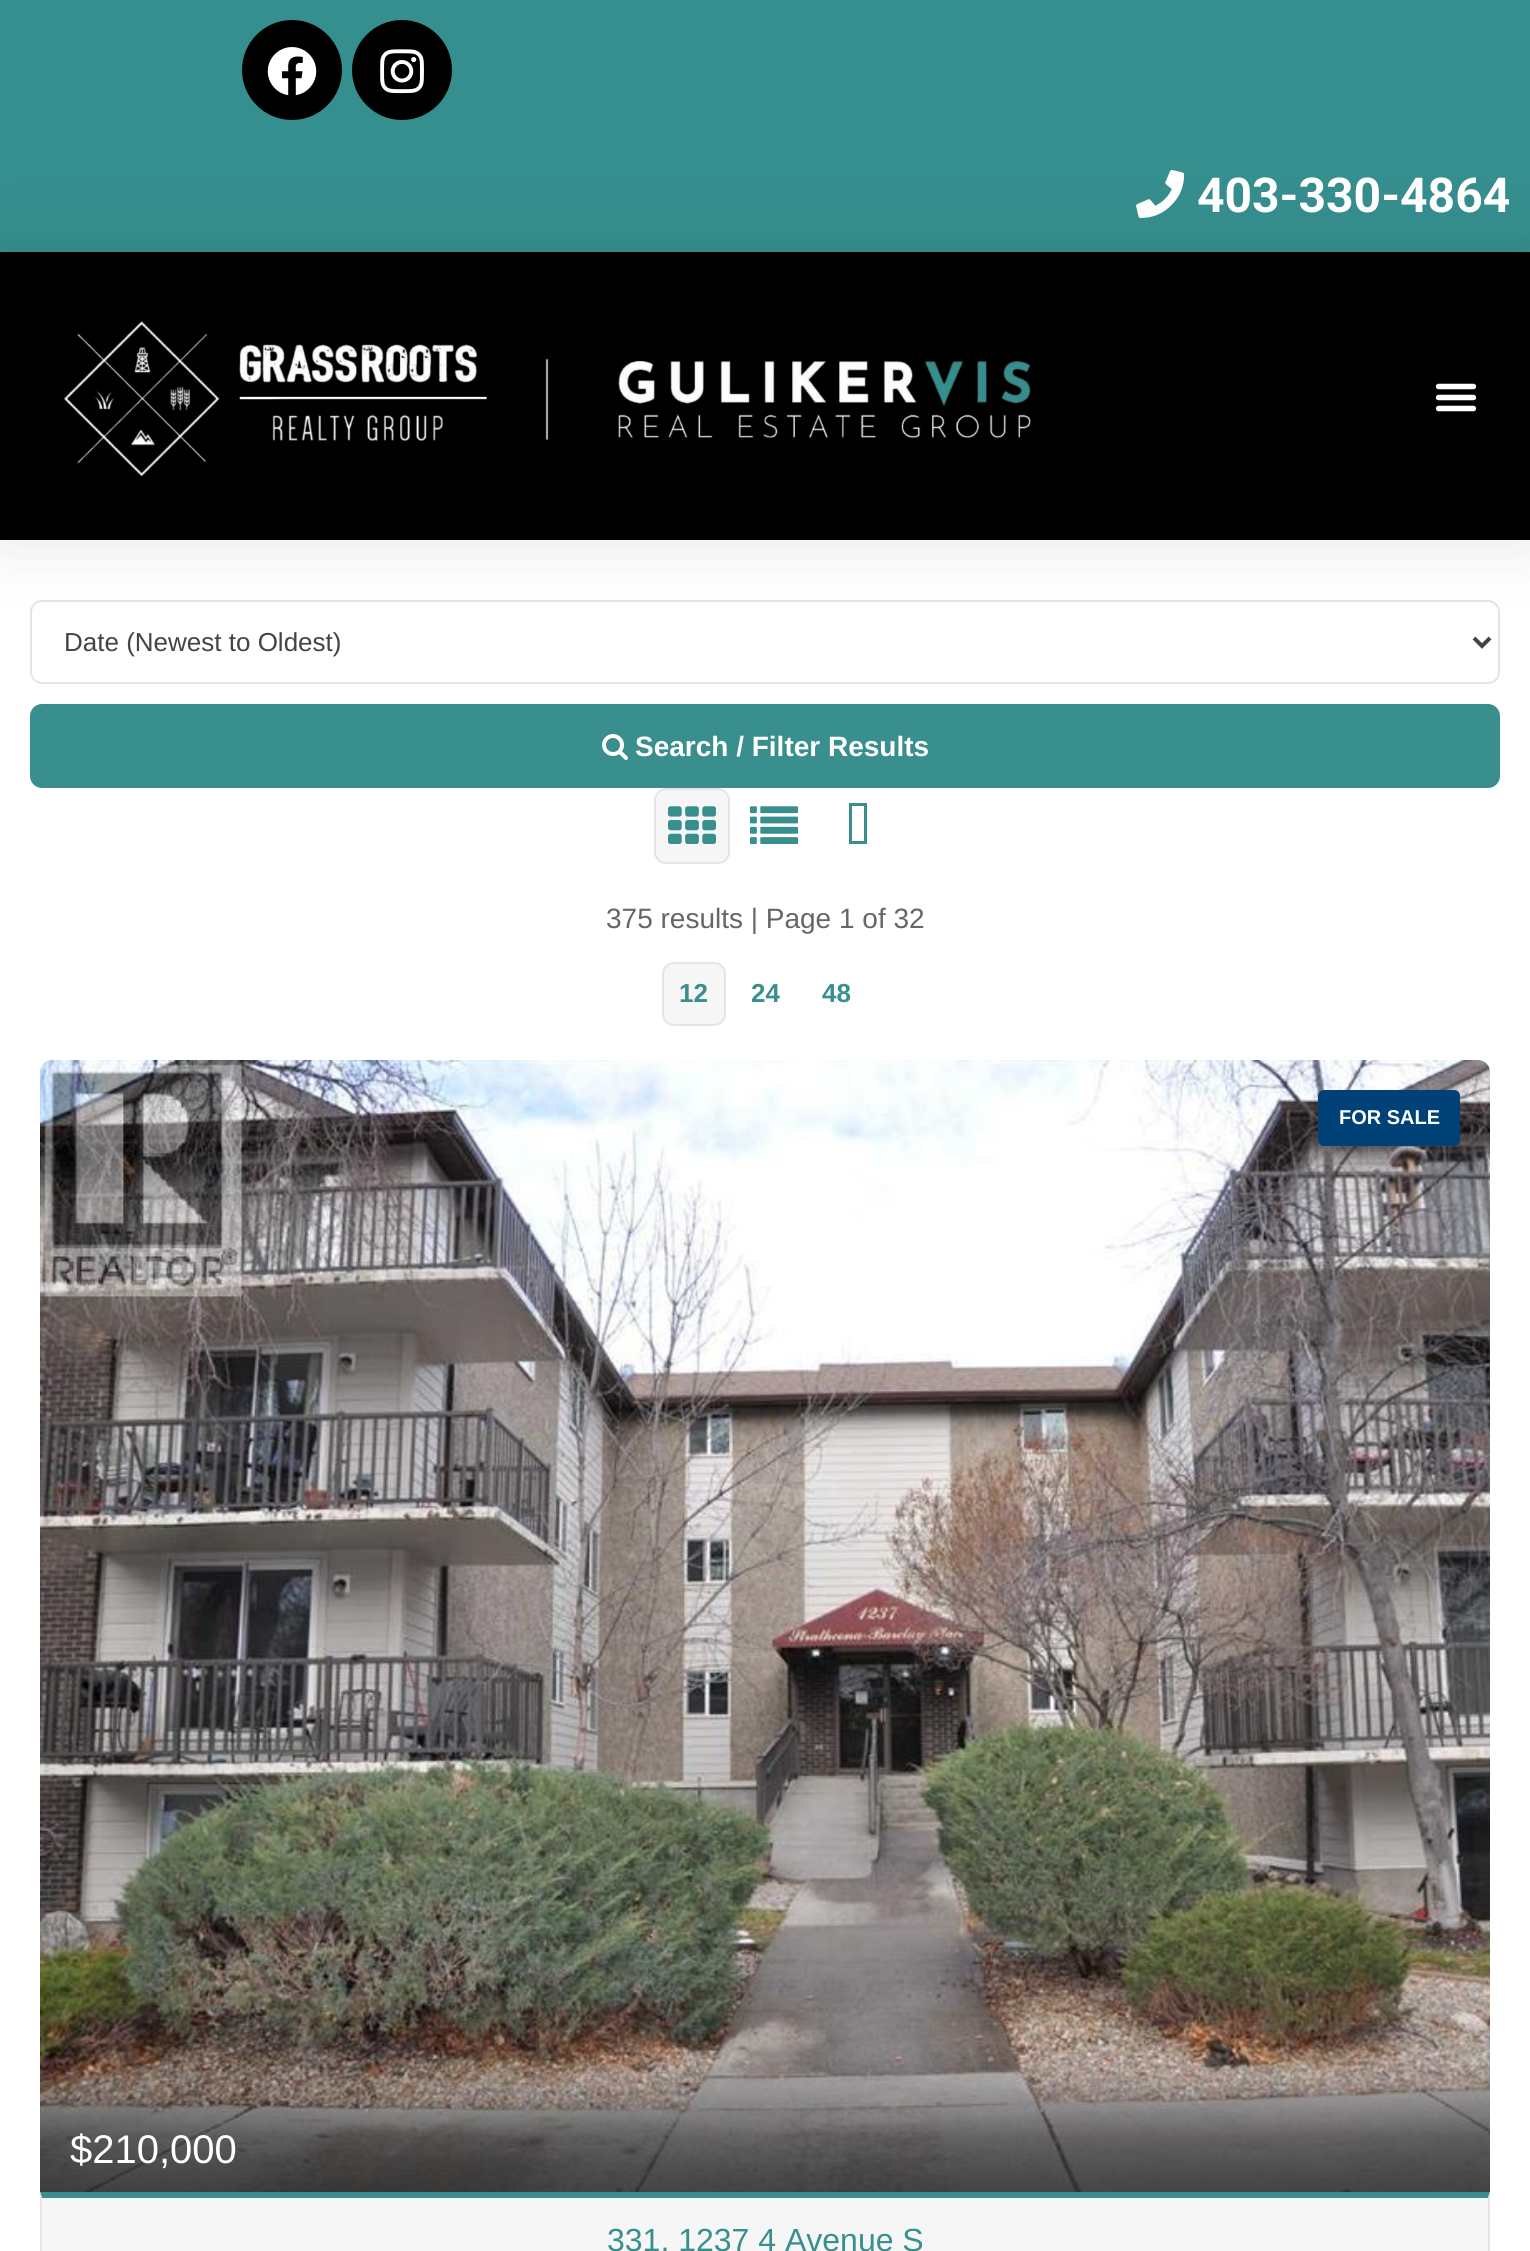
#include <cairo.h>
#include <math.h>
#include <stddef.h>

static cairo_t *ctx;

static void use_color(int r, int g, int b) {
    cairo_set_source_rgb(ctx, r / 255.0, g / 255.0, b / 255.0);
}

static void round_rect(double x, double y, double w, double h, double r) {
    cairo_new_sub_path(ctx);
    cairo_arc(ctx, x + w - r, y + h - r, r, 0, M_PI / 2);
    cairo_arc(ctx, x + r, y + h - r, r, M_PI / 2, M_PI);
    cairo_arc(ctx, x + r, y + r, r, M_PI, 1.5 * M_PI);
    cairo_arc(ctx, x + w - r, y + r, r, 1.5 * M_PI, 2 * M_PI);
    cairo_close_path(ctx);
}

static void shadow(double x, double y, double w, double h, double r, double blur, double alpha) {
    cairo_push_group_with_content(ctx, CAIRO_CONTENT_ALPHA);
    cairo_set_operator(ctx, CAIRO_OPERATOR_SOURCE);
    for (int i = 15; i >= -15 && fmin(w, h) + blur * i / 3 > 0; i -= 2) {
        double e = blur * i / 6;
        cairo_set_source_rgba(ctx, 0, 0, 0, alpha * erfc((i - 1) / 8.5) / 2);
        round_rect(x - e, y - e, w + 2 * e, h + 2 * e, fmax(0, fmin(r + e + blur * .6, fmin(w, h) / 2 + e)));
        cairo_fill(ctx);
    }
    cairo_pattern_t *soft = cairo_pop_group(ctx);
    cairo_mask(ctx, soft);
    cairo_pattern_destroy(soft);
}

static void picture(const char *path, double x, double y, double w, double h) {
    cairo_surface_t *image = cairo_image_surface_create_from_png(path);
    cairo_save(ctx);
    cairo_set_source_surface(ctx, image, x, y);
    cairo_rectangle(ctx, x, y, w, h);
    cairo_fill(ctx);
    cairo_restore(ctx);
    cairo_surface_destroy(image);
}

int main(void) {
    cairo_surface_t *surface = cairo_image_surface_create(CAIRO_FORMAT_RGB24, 1530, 2251);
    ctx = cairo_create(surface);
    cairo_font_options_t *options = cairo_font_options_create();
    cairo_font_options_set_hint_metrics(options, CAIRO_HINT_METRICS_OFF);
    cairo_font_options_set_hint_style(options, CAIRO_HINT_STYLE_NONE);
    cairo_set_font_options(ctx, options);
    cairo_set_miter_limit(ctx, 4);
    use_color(255, 255, 255);
    cairo_paint(ctx);
    use_color(53, 143, 142);
    cairo_rectangle(ctx, 0, 0, 1530, 252);
    cairo_fill(ctx);
    picture("img5.png", 1136, 170, 49, 48);
    round_rect(31, 601, 1468, 82, 11);
    use_color(229, 229, 229);
    cairo_stroke(ctx);
    cairo_new_path(ctx);
    cairo_move_to(ctx, 1474, 638);
    cairo_line_to(ctx, 1482, 646);
    cairo_line_to(ctx, 1490, 638);
    use_color(68, 68, 68);
    cairo_set_line_width(ctx, 4);
    cairo_stroke(ctx);
    use_color(0, 0, 0);
    shadow(0, 252, 1530, 288, 0, 38, 0.1);
    use_color(0, 0, 0);
    cairo_rectangle(ctx, 0, 252, 1530, 288);
    cairo_fill(ctx);
    picture("img1.png", 64, 321, 967, 156);
    picture("img2.png", 1435, 383, 42, 29);
    cairo_arc(ctx, 292, 70, 50, 0, 2 * M_PI);
    cairo_fill(ctx);
    picture("img3.png", 267, 47, 50, 49);
    cairo_arc(ctx, 402, 70, 50, 0, 2 * M_PI);
    cairo_fill(ctx);
    picture("img4.png", 380, 49, 44, 45);
    cairo_select_font_face(ctx, "Roboto", CAIRO_FONT_SLANT_NORMAL, CAIRO_FONT_WEIGHT_BOLD);
    cairo_set_font_size(ctx, 48);
    use_color(255, 255, 255);
    cairo_move_to(ctx, 1197, 212);
    cairo_show_text(ctx, "403-330-4864");
    cairo_select_font_face(ctx, "Liberation Sans", CAIRO_FONT_SLANT_NORMAL, CAIRO_FONT_WEIGHT_NORMAL);
    cairo_set_font_size(ctx, 26);
    use_color(68, 68, 68);
    cairo_move_to(ctx, 64, 651);
    cairo_show_text(ctx, "Date (Newest to Oldest)");
    use_color(56, 143, 142);
    round_rect(31, 705, 1468, 82, 11);
    cairo_fill_preserve(ctx);
    cairo_set_line_width(ctx, 2);
    cairo_stroke(ctx);
    picture("img6.png", 602, 734, 26, 26);
    cairo_select_font_face(ctx, "Liberation Sans", CAIRO_FONT_SLANT_NORMAL, CAIRO_FONT_WEIGHT_BOLD);
    cairo_set_font_size(ctx, 28);
    use_color(255, 255, 255);
    cairo_move_to(ctx, 635, 756);
    cairo_show_text(ctx, "Search / Filter Results");
    use_color(246, 246, 246);
    round_rect(655, 789, 74, 74, 11);
    cairo_fill_preserve(ctx);
    use_color(229, 229, 229);
    cairo_stroke(ctx);
    picture("img7.png", 668, 806, 48, 38);
    picture("img8.png", 750, 806, 48, 38);
    use_color(56, 143, 142);
    cairo_new_path(ctx);
    cairo_move_to(ctx, 852, 841);
    cairo_line_to(ctx, 864, 841);
    cairo_line_to(ctx, 864, 806);
    cairo_line_to(ctx, 852, 806);
    cairo_close_path(ctx);
    cairo_move_to(ctx, 849, 844);
    cairo_line_to(ctx, 849, 803);
    cairo_line_to(ctx, 867, 803);
    cairo_line_to(ctx, 867, 844);
    cairo_close_path(ctx);
    cairo_fill(ctx);
    cairo_select_font_face(ctx, "Liberation Sans", CAIRO_FONT_SLANT_NORMAL, CAIRO_FONT_WEIGHT_NORMAL);
    use_color(102, 102, 102);
    cairo_move_to(ctx, 606, 928);
    cairo_show_text(ctx, "375 results | Page 1 of 32");
    use_color(246, 246, 246);
    round_rect(663, 963, 62, 62, 11);
    cairo_fill_preserve(ctx);
    use_color(229, 229, 229);
    cairo_stroke(ctx);
    cairo_select_font_face(ctx, "Liberation Sans", CAIRO_FONT_SLANT_NORMAL, CAIRO_FONT_WEIGHT_BOLD);
    cairo_set_font_size(ctx, 26);
    use_color(56, 143, 142);
    cairo_move_to(ctx, 679, 1002);
    cairo_show_text(ctx, "12");
    cairo_move_to(ctx, 751, 1002);
    cairo_show_text(ctx, "24");
    cairo_move_to(ctx, 822, 1002);
    cairo_show_text(ctx, "48");
    picture("img9.png", 40, 1060, 1450, 1132);
    use_color(0, 65, 119);
    round_rect(1318, 1090, 142, 56, 6);
    cairo_fill(ctx);
    cairo_set_font_size(ctx, 20);
    use_color(255, 255, 255);
    cairo_move_to(ctx, 1339, 1124);
    cairo_show_text(ctx, "FOR SALE");
    cairo_select_font_face(ctx, "Liberation Sans", CAIRO_FONT_SLANT_NORMAL, CAIRO_FONT_WEIGHT_NORMAL);
    cairo_set_font_size(ctx, 40);
    cairo_move_to(ctx, 70, 2163);
    cairo_show_text(ctx, "$210,000");
    use_color(246, 246, 246);
    cairo_rectangle(ctx, 42, 2198, 1446, 53);
    cairo_fill(ctx);
    use_color(56, 143, 142);
    cairo_new_path(ctx);
    cairo_move_to(ctx, 40, 2192);
    cairo_line_to(ctx, 42, 2198);
    cairo_line_to(ctx, 1488, 2198);
    cairo_line_to(ctx, 1490, 2192);
    cairo_close_path(ctx);
    cairo_fill(ctx);
    use_color(229, 229, 229);
    cairo_new_path(ctx);
    cairo_move_to(ctx, 1490, 2192);
    cairo_line_to(ctx, 1488, 2198);
    cairo_line_to(ctx, 1488, 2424);
    cairo_curve_to(ctx, 1488, 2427, 1487, 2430, 1485, 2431);
    cairo_line_to(ctx, 1487, 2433);
    cairo_curve_to(ctx, 1489, 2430, 1490, 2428, 1490, 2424);
    cairo_close_path(ctx);
    cairo_fill(ctx);
    cairo_new_path(ctx);
    cairo_move_to(ctx, 42, 2198);
    cairo_line_to(ctx, 40, 2192);
    cairo_line_to(ctx, 40, 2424);
    cairo_curve_to(ctx, 40, 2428, 41, 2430, 43, 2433);
    cairo_line_to(ctx, 45, 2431);
    cairo_curve_to(ctx, 43, 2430, 42, 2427, 42, 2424);
    cairo_close_path(ctx);
    cairo_fill(ctx);
    cairo_set_font_size(ctx, 32);
    use_color(56, 143, 142);
    cairo_move_to(ctx, 607, 2251);
    cairo_show_text(ctx, "331, 1237 4 Avenue S");
    cairo_surface_write_to_png(surface, "result.png");
    cairo_font_options_destroy(options);
    cairo_destroy(ctx);
    cairo_surface_destroy(surface);
    return 0;
}
